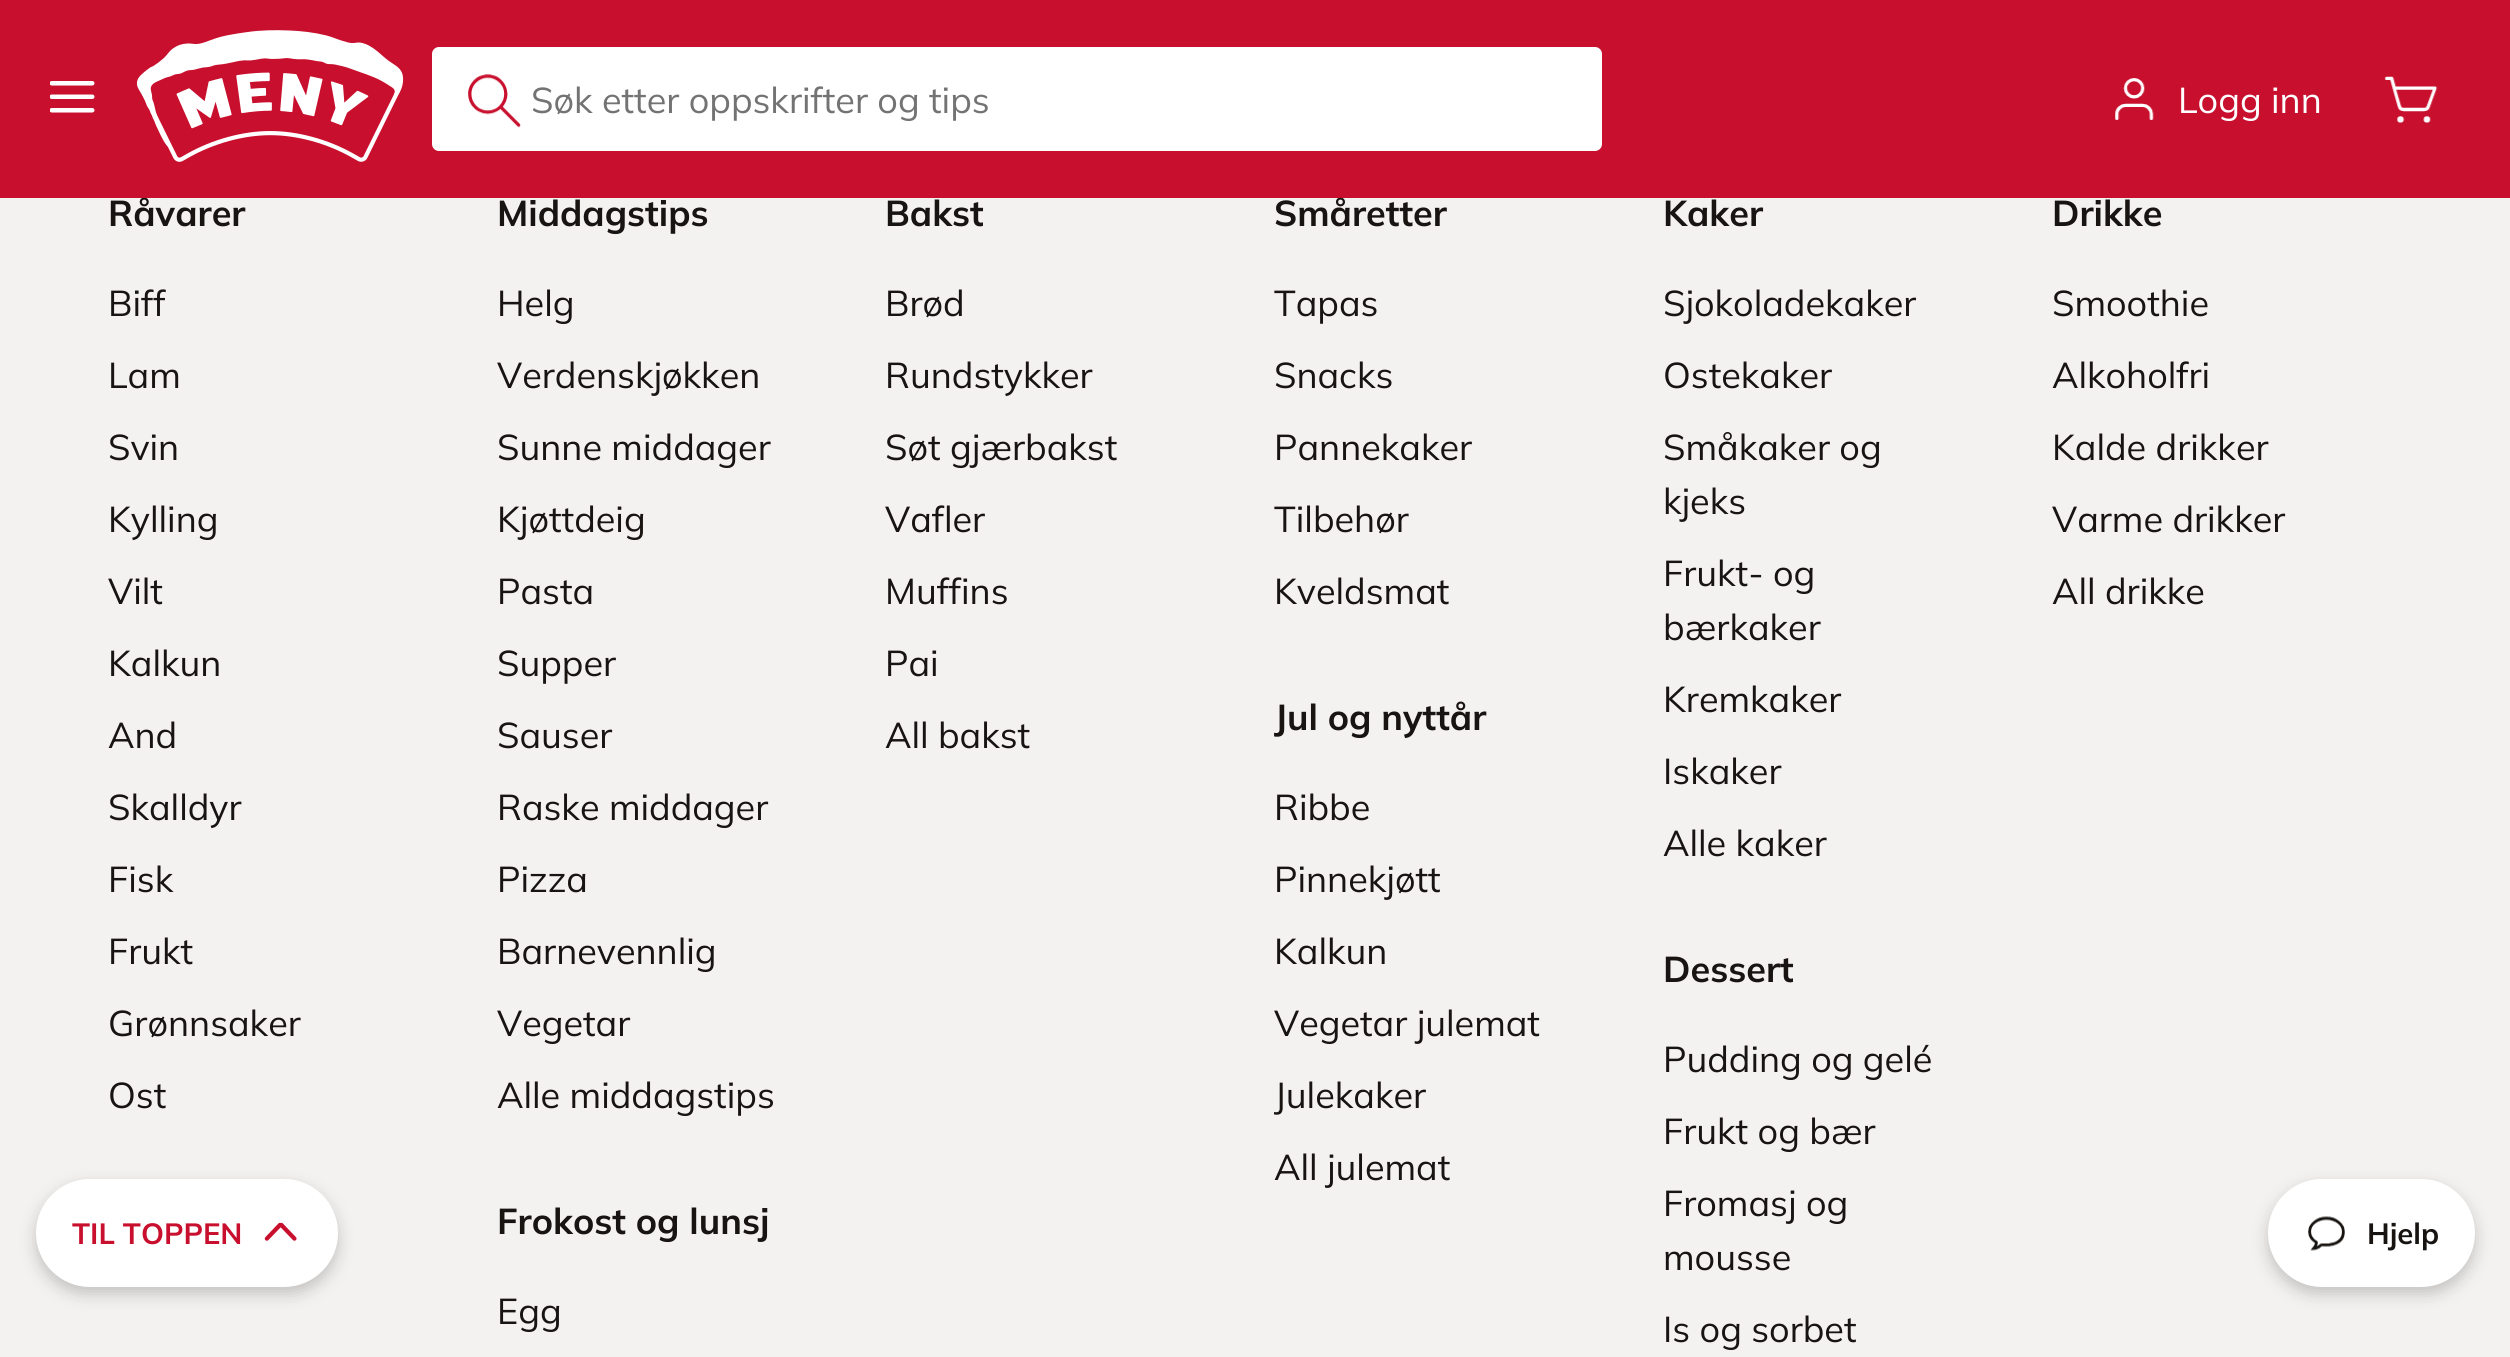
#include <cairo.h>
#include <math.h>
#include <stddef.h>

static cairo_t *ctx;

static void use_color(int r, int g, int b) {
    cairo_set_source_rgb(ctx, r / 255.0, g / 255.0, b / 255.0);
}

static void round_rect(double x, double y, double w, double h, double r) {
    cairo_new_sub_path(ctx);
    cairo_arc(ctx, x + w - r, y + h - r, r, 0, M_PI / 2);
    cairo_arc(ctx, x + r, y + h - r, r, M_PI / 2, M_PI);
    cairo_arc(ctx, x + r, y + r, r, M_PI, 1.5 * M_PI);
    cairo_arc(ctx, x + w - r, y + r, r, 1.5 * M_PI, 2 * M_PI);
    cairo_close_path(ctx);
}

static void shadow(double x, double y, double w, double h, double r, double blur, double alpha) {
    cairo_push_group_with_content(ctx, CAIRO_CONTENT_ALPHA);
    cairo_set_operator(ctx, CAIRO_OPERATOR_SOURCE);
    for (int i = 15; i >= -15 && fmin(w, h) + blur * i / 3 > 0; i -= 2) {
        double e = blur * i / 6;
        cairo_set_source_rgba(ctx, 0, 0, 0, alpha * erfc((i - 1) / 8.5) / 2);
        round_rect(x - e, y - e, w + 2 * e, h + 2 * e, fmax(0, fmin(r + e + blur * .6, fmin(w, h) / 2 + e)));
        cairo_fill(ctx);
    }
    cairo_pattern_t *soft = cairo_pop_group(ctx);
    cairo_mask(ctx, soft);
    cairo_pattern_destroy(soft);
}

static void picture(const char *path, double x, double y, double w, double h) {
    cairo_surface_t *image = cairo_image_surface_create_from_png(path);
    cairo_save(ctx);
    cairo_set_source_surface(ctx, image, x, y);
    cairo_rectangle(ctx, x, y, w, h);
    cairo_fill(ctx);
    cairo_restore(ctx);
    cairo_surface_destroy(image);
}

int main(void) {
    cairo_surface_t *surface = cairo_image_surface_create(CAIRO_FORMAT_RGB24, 2510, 1357);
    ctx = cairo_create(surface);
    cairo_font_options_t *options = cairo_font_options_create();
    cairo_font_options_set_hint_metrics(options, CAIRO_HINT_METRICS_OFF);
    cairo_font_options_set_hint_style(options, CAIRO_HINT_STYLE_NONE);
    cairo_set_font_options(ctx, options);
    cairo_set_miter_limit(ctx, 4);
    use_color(244, 242, 241);
    cairo_paint(ctx);
    cairo_select_font_face(ctx, "Mulish ExtraLight", CAIRO_FONT_SLANT_NORMAL, CAIRO_FONT_WEIGHT_NORMAL);
    cairo_set_font_size(ctx, 36);
    use_color(23, 20, 18);
    cairo_move_to(ctx, 108, 226);
    cairo_show_text(ctx, "Råvarer");
    cairo_move_to(ctx, 1274, 226);
    cairo_show_text(ctx, "Småretter");
    use_color(200, 16, 46);
    cairo_rectangle(ctx, 0, 0, 2510, 198);
    cairo_fill(ctx);
    picture("img1.png", 50, 81, 45, 32);
    picture("img2.png", 136, 30, 268, 132);
    use_color(255, 255, 255);
    round_rect(432, 47, 1170, 104, 7);
    cairo_fill(ctx);
    picture("img3.png", 468, 74, 53, 54);
    cairo_select_font_face(ctx, "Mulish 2 ExtraLight", CAIRO_FONT_SLANT_NORMAL, CAIRO_FONT_WEIGHT_NORMAL);
    use_color(115, 115, 115);
    cairo_move_to(ctx, 531, 113);
    cairo_show_text(ctx, "Søk etter oppskrifter og tips");
    picture("img4.png", 2115, 78, 39, 42);
    use_color(255, 255, 255);
    cairo_move_to(ctx, 2178, 113);
    cairo_show_text(ctx, "Logg inn");
    picture("img5.png", 2384, 76, 54, 47);
    use_color(23, 20, 18);
    cairo_move_to(ctx, 108, 316);
    cairo_show_text(ctx, "Biff");
    cairo_move_to(ctx, 108, 388);
    cairo_show_text(ctx, "Lam");
    cairo_move_to(ctx, 108, 460);
    cairo_show_text(ctx, "Svin");
    cairo_move_to(ctx, 108, 532);
    cairo_show_text(ctx, "Kylling");
    cairo_move_to(ctx, 108, 604);
    cairo_show_text(ctx, "Vilt");
    cairo_move_to(ctx, 108, 676);
    cairo_show_text(ctx, "Kalkun");
    cairo_move_to(ctx, 108, 748);
    cairo_show_text(ctx, "And");
    cairo_move_to(ctx, 108, 820);
    cairo_show_text(ctx, "Skalldyr");
    cairo_move_to(ctx, 108, 892);
    cairo_show_text(ctx, "Fisk");
    cairo_move_to(ctx, 108, 964);
    cairo_show_text(ctx, "Frukt");
    cairo_move_to(ctx, 108, 1036);
    cairo_show_text(ctx, "Grønnsaker");
    cairo_move_to(ctx, 108, 1108);
    cairo_show_text(ctx, "Ost");
    cairo_select_font_face(ctx, "Mulish ExtraLight", CAIRO_FONT_SLANT_NORMAL, CAIRO_FONT_WEIGHT_NORMAL);
    cairo_move_to(ctx, 497, 226);
    cairo_show_text(ctx, "Middagstips");
    cairo_select_font_face(ctx, "Mulish 2 ExtraLight", CAIRO_FONT_SLANT_NORMAL, CAIRO_FONT_WEIGHT_NORMAL);
    cairo_move_to(ctx, 497, 316);
    cairo_show_text(ctx, "Helg");
    cairo_move_to(ctx, 497, 388);
    cairo_show_text(ctx, "Verdenskjøkken");
    cairo_move_to(ctx, 497, 460);
    cairo_show_text(ctx, "Sunne middager");
    cairo_move_to(ctx, 497, 532);
    cairo_show_text(ctx, "Kjøttdeig");
    cairo_move_to(ctx, 497, 604);
    cairo_show_text(ctx, "Pasta");
    cairo_move_to(ctx, 497, 676);
    cairo_show_text(ctx, "Supper");
    cairo_move_to(ctx, 497, 748);
    cairo_show_text(ctx, "Sauser");
    cairo_move_to(ctx, 497, 820);
    cairo_show_text(ctx, "Raske middager");
    cairo_move_to(ctx, 497, 892);
    cairo_show_text(ctx, "Pizza");
    cairo_move_to(ctx, 497, 964);
    cairo_show_text(ctx, "Barnevennlig");
    cairo_move_to(ctx, 497, 1036);
    cairo_show_text(ctx, "Vegetar");
    cairo_move_to(ctx, 497, 1108);
    cairo_show_text(ctx, "Alle middagstips");
    cairo_select_font_face(ctx, "Mulish ExtraLight", CAIRO_FONT_SLANT_NORMAL, CAIRO_FONT_WEIGHT_NORMAL);
    cairo_move_to(ctx, 497, 1234);
    cairo_show_text(ctx, "Frokost og lunsj");
    cairo_select_font_face(ctx, "Mulish 2 ExtraLight", CAIRO_FONT_SLANT_NORMAL, CAIRO_FONT_WEIGHT_NORMAL);
    cairo_move_to(ctx, 497, 1324);
    cairo_show_text(ctx, "Egg");
    cairo_select_font_face(ctx, "Mulish ExtraLight", CAIRO_FONT_SLANT_NORMAL, CAIRO_FONT_WEIGHT_NORMAL);
    cairo_move_to(ctx, 885, 226);
    cairo_show_text(ctx, "Bakst");
    cairo_select_font_face(ctx, "Mulish 2 ExtraLight", CAIRO_FONT_SLANT_NORMAL, CAIRO_FONT_WEIGHT_NORMAL);
    cairo_move_to(ctx, 885, 316);
    cairo_show_text(ctx, "Brød");
    cairo_move_to(ctx, 885, 388);
    cairo_show_text(ctx, "Rundstykker");
    cairo_move_to(ctx, 885, 460);
    cairo_show_text(ctx, "Søt gjærbakst");
    cairo_move_to(ctx, 885, 532);
    cairo_show_text(ctx, "Vafler");
    cairo_move_to(ctx, 885, 604);
    cairo_show_text(ctx, "Muffins");
    cairo_move_to(ctx, 885, 676);
    cairo_show_text(ctx, "Pai");
    cairo_move_to(ctx, 885, 748);
    cairo_show_text(ctx, "All bakst");
    cairo_move_to(ctx, 1274, 316);
    cairo_show_text(ctx, "Tapas");
    cairo_move_to(ctx, 1274, 388);
    cairo_show_text(ctx, "Snacks");
    cairo_move_to(ctx, 1274, 460);
    cairo_show_text(ctx, "Pannekaker");
    cairo_move_to(ctx, 1274, 532);
    cairo_show_text(ctx, "Tilbehør");
    cairo_move_to(ctx, 1274, 604);
    cairo_show_text(ctx, "Kveldsmat");
    cairo_select_font_face(ctx, "Mulish ExtraLight", CAIRO_FONT_SLANT_NORMAL, CAIRO_FONT_WEIGHT_NORMAL);
    cairo_move_to(ctx, 1274, 730);
    cairo_show_text(ctx, "Jul og nyttår");
    cairo_select_font_face(ctx, "Mulish 2 ExtraLight", CAIRO_FONT_SLANT_NORMAL, CAIRO_FONT_WEIGHT_NORMAL);
    cairo_move_to(ctx, 1274, 820);
    cairo_show_text(ctx, "Ribbe");
    cairo_move_to(ctx, 1274, 892);
    cairo_show_text(ctx, "Pinnekjøtt");
    cairo_move_to(ctx, 1274, 964);
    cairo_show_text(ctx, "Kalkun");
    cairo_move_to(ctx, 1274, 1036);
    cairo_show_text(ctx, "Vegetar julemat");
    cairo_move_to(ctx, 1274, 1108);
    cairo_show_text(ctx, "Julekaker");
    cairo_move_to(ctx, 1274, 1180);
    cairo_show_text(ctx, "All julemat");
    cairo_select_font_face(ctx, "Mulish ExtraLight", CAIRO_FONT_SLANT_NORMAL, CAIRO_FONT_WEIGHT_NORMAL);
    cairo_move_to(ctx, 1663, 226);
    cairo_show_text(ctx, "Kaker");
    cairo_select_font_face(ctx, "Mulish 2 ExtraLight", CAIRO_FONT_SLANT_NORMAL, CAIRO_FONT_WEIGHT_NORMAL);
    cairo_move_to(ctx, 1663, 316);
    cairo_show_text(ctx, "Sjokoladekaker");
    cairo_move_to(ctx, 1663, 388);
    cairo_show_text(ctx, "Ostekaker");
    cairo_move_to(ctx, 1663, 460);
    cairo_show_text(ctx, "Småkaker og");
    cairo_move_to(ctx, 1663, 514);
    cairo_show_text(ctx, "kjeks");
    cairo_move_to(ctx, 1663, 586);
    cairo_show_text(ctx, "Frukt- og");
    cairo_move_to(ctx, 1663, 640);
    cairo_show_text(ctx, "bærkaker");
    cairo_move_to(ctx, 1663, 712);
    cairo_show_text(ctx, "Kremkaker");
    cairo_move_to(ctx, 1663, 784);
    cairo_show_text(ctx, "Iskaker");
    cairo_move_to(ctx, 1663, 856);
    cairo_show_text(ctx, "Alle kaker");
    cairo_select_font_face(ctx, "Mulish ExtraLight", CAIRO_FONT_SLANT_NORMAL, CAIRO_FONT_WEIGHT_NORMAL);
    cairo_move_to(ctx, 1663, 982);
    cairo_show_text(ctx, "Dessert");
    cairo_select_font_face(ctx, "Mulish 2 ExtraLight", CAIRO_FONT_SLANT_NORMAL, CAIRO_FONT_WEIGHT_NORMAL);
    cairo_move_to(ctx, 1663, 1072);
    cairo_show_text(ctx, "Pudding og gelé");
    cairo_move_to(ctx, 1663, 1144);
    cairo_show_text(ctx, "Frukt og bær");
    cairo_move_to(ctx, 1663, 1216);
    cairo_show_text(ctx, "Fromasj og");
    cairo_move_to(ctx, 1663, 1270);
    cairo_show_text(ctx, "mousse");
    cairo_move_to(ctx, 1663, 1342);
    cairo_show_text(ctx, "Is og sorbet");
    cairo_select_font_face(ctx, "Mulish ExtraLight", CAIRO_FONT_SLANT_NORMAL, CAIRO_FONT_WEIGHT_NORMAL);
    cairo_move_to(ctx, 2052, 226);
    cairo_show_text(ctx, "Drikke");
    cairo_select_font_face(ctx, "Mulish 2 ExtraLight", CAIRO_FONT_SLANT_NORMAL, CAIRO_FONT_WEIGHT_NORMAL);
    cairo_move_to(ctx, 2052, 316);
    cairo_show_text(ctx, "Smoothie");
    cairo_move_to(ctx, 2052, 388);
    cairo_show_text(ctx, "Alkoholfri");
    cairo_move_to(ctx, 2052, 460);
    cairo_show_text(ctx, "Kalde drikker");
    cairo_move_to(ctx, 2052, 532);
    cairo_show_text(ctx, "Varme drikker");
    cairo_move_to(ctx, 2052, 604);
    cairo_show_text(ctx, "All drikke");
    use_color(0, 0, 0);
    shadow(36, 1186, 302, 108, 54, 8, 0.2);
    use_color(255, 255, 255);
    round_rect(36, 1179, 302, 108, 54);
    cairo_fill(ctx);
    cairo_select_font_face(ctx, "Mulish ExtraLight", CAIRO_FONT_SLANT_NORMAL, CAIRO_FONT_WEIGHT_NORMAL);
    cairo_set_font_size(ctx, 29.25);
    use_color(200, 16, 46);
    cairo_move_to(ctx, 72, 1244);
    cairo_show_text(ctx, "TIL TOPPEN");
    picture("img6.png", 264, 1222, 33, 19);
    use_color(0, 0, 0);
    shadow(2268, 1186, 207, 108, 54, 8, 0.2);
    use_color(255, 255, 255);
    round_rect(2268, 1179, 207, 108, 54);
    cairo_fill(ctx);
    picture("img7.png", 2308, 1216, 37, 35);
    use_color(23, 20, 18);
    cairo_move_to(ctx, 2367, 1244);
    cairo_show_text(ctx, "Hjelp");
    cairo_surface_write_to_png(surface, "result.png");
    cairo_font_options_destroy(options);
    cairo_destroy(ctx);
    cairo_surface_destroy(surface);
    return 0;
}
